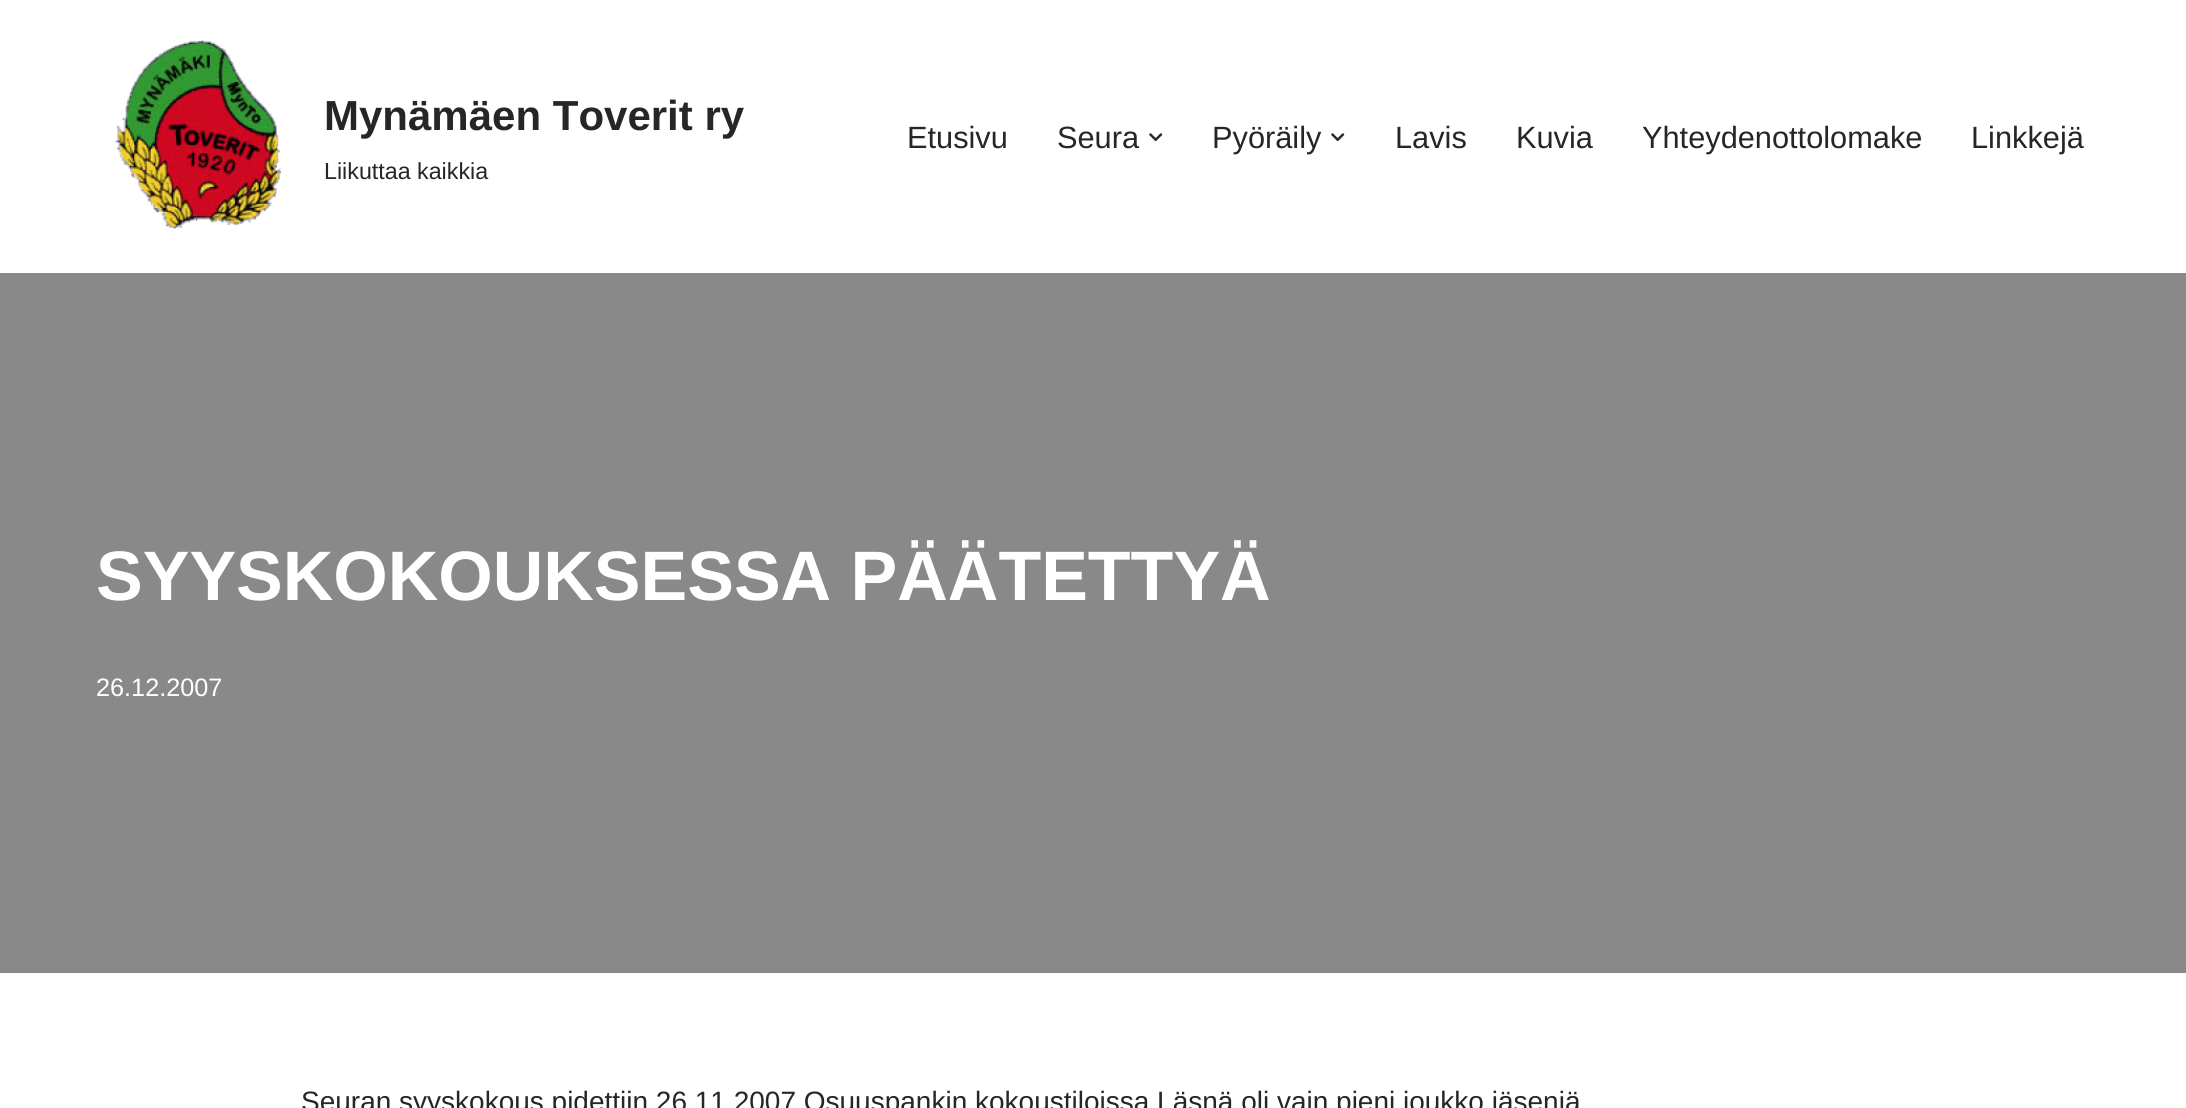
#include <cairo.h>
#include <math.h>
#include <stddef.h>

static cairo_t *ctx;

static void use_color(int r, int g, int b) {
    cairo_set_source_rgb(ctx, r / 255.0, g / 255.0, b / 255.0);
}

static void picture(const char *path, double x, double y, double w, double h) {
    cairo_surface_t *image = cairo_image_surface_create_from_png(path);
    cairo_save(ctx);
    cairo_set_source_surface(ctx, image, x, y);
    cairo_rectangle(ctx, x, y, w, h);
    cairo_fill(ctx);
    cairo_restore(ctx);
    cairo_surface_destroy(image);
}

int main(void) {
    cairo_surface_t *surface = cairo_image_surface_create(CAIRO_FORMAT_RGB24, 2186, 1108);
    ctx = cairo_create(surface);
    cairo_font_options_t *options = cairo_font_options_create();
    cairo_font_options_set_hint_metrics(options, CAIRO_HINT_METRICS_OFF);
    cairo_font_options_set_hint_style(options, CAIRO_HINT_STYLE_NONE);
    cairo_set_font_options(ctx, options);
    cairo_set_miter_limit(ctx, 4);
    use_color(255, 255, 255);
    cairo_paint(ctx);
    use_color(137, 137, 137);
    cairo_rectangle(ctx, 0, 273, 2186, 700);
    cairo_fill(ctx);
    picture("img1.png", 115, 40, 167, 189);
    cairo_select_font_face(ctx, "Liberation Sans", CAIRO_FONT_SLANT_NORMAL, CAIRO_FONT_WEIGHT_BOLD);
    cairo_set_font_size(ctx, 42);
    use_color(39, 38, 38);
    cairo_move_to(ctx, 324, 130);
    cairo_show_text(ctx, "Mynämäen Toverit ry");
    cairo_select_font_face(ctx, "Liberation Sans", CAIRO_FONT_SLANT_NORMAL, CAIRO_FONT_WEIGHT_NORMAL);
    cairo_set_font_size(ctx, 23.25);
    cairo_move_to(ctx, 324, 179);
    cairo_show_text(ctx, "Liikuttaa kaikkia");
    cairo_set_font_size(ctx, 30.75);
    cairo_move_to(ctx, 907, 148);
    cairo_show_text(ctx, "Etusivu");
    cairo_move_to(ctx, 1057, 148);
    cairo_show_text(ctx, "Seura");
    picture("img2.png", 1149, 133, 14, 9);
    cairo_move_to(ctx, 1212, 148);
    cairo_show_text(ctx, "Pyöräily");
    picture("img2.png", 1331, 133, 14, 9);
    cairo_move_to(ctx, 1395, 148);
    cairo_show_text(ctx, "Lavis");
    cairo_move_to(ctx, 1516, 148);
    cairo_show_text(ctx, "Kuvia");
    cairo_move_to(ctx, 1642, 148);
    cairo_show_text(ctx, "Yhteydenottolomake");
    cairo_move_to(ctx, 1971, 148);
    cairo_show_text(ctx, "Linkkejä");
    cairo_select_font_face(ctx, "Liberation Sans", CAIRO_FONT_SLANT_NORMAL, CAIRO_FONT_WEIGHT_BOLD);
    cairo_set_font_size(ctx, 70);
    use_color(255, 255, 255);
    cairo_move_to(ctx, 96, 600);
    cairo_show_text(ctx, "SYYSKOKOUKSESSA PÄÄTETTYÄ");
    cairo_select_font_face(ctx, "Liberation Sans", CAIRO_FONT_SLANT_NORMAL, CAIRO_FONT_WEIGHT_NORMAL);
    cairo_set_font_size(ctx, 25.25);
    cairo_move_to(ctx, 96, 696);
    cairo_show_text(ctx, "26.12.2007");
    cairo_set_font_size(ctx, 28);
    use_color(39, 38, 38);
    cairo_move_to(ctx, 301, 1111);
    cairo_show_text(ctx, "Seuran syyskokous pidettiin 26.11.2007 Osuuspankin kokoustiloissa.Läsnä oli vain pieni joukko jäseniä");
    cairo_surface_write_to_png(surface, "result.png");
    cairo_font_options_destroy(options);
    cairo_destroy(ctx);
    cairo_surface_destroy(surface);
    return 0;
}
